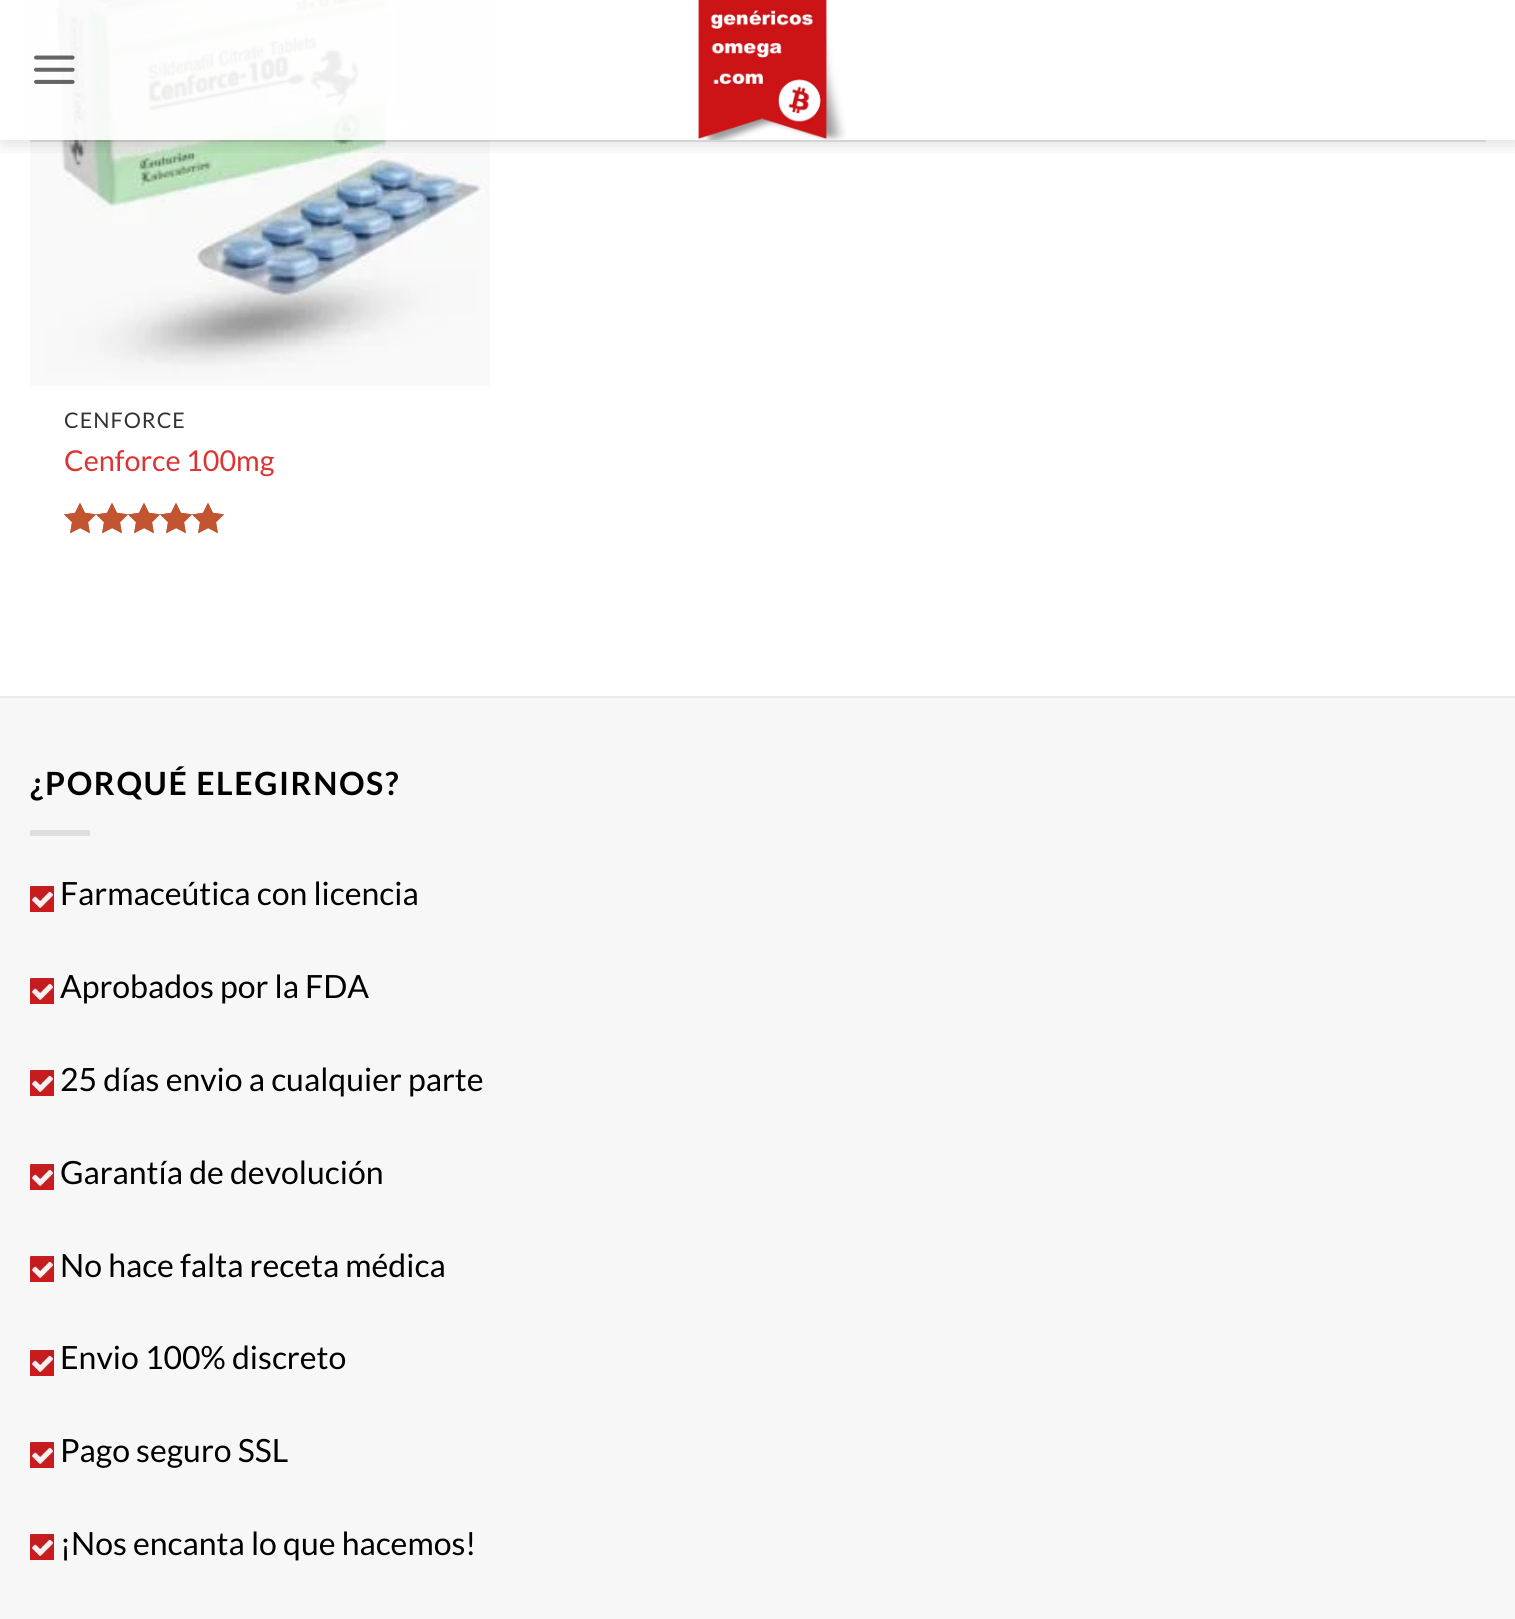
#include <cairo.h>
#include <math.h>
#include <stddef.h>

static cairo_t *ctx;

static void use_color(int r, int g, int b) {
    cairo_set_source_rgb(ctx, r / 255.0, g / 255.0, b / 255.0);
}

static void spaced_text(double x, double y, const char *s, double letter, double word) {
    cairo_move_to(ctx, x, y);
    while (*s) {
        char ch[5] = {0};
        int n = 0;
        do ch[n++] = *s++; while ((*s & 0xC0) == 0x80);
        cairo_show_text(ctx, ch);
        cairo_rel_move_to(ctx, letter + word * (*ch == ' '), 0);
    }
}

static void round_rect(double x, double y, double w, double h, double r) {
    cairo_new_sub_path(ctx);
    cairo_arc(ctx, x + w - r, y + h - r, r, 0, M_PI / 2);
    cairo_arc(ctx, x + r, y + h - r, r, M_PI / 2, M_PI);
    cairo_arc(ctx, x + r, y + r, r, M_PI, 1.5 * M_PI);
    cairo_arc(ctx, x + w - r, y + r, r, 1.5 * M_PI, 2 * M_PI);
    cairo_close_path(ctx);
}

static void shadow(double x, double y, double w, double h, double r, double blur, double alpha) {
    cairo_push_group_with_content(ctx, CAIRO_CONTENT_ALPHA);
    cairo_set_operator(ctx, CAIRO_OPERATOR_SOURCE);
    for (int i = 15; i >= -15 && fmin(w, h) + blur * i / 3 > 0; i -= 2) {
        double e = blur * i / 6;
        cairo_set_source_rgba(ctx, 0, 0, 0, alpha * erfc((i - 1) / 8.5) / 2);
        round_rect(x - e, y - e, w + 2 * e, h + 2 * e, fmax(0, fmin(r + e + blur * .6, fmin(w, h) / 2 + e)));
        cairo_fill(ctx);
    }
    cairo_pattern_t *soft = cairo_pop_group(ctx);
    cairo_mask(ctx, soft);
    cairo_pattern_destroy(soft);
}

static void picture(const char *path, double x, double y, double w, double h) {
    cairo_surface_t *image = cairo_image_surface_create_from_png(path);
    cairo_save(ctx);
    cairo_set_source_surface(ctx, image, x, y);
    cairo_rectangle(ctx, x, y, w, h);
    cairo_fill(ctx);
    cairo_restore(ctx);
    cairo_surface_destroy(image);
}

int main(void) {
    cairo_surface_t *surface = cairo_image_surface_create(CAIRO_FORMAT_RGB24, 1515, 1619);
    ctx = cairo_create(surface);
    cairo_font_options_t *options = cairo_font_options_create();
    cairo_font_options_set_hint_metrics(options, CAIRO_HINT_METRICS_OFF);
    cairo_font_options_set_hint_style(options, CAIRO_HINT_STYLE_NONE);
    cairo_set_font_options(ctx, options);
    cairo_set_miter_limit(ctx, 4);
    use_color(255, 255, 255);
    cairo_paint(ctx);
    picture("img3.png", 30, 0, 460, 386);
    cairo_save(ctx);
    cairo_rectangle(ctx, 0, 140, 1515, 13);
    cairo_clip(ctx);
    use_color(0, 0, 0);
    shadow(2, 2, 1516, 140, 0, 10, 0.15);
    cairo_restore(ctx);
    cairo_set_source_rgba(ctx, 1, 1, 1, 0.9);
    cairo_rectangle(ctx, 30, 0, 460, 140);
    cairo_fill(ctx);
    picture("img1.png", 34, 55, 41, 29);
    picture("img2.png", 698, 0, 148, 140);
    cairo_set_source_rgba(ctx, 0, 0, 0, 0.1);
    cairo_rectangle(ctx, 30, 140, 1456, 2);
    cairo_fill(ctx);
    cairo_select_font_face(ctx, "Lato", CAIRO_FONT_SLANT_NORMAL, CAIRO_FONT_WEIGHT_NORMAL);
    cairo_set_font_size(ctx, 21.5);
    use_color(51, 51, 51);
    spaced_text(64, 428, "CENFORCE", 1, 0);
    cairo_set_font_size(ctx, 28.75);
    use_color(221, 51, 51);
    cairo_move_to(ctx, 64, 471);
    cairo_show_text(ctx, "Cenforce 100mg");
    picture("img4.png", 64, 503, 160, 31);
    picture("img5.png", 64, 503, 160, 31);
    use_color(247, 247, 247);
    cairo_rectangle(ctx, 0, 698, 1515, 921);
    cairo_fill(ctx);
    use_color(235, 235, 235);
    cairo_rectangle(ctx, 0, 696, 1515, 2);
    cairo_fill(ctx);
    cairo_select_font_face(ctx, "Lato", CAIRO_FONT_SLANT_NORMAL, CAIRO_FONT_WEIGHT_BOLD);
    cairo_set_font_size(ctx, 32);
    use_color(0, 0, 0);
    spaced_text(30, 795, "¿PORQUÉ ELEGIRNOS?", 1.6, 0);
    use_color(222, 222, 222);
    cairo_rectangle(ctx, 30, 830, 60, 6);
    cairo_fill(ctx);
    picture("img6.png", 30, 886, 24, 26);
    cairo_select_font_face(ctx, "Lato", CAIRO_FONT_SLANT_NORMAL, CAIRO_FONT_WEIGHT_NORMAL);
    use_color(0, 0, 0);
    cairo_move_to(ctx, 60, 905);
    cairo_show_text(ctx, "Farmaceútica con licencia");
    picture("img6.png", 30, 978, 24, 26);
    cairo_move_to(ctx, 60, 998);
    cairo_show_text(ctx, "Aprobados por la FDA");
    picture("img6.png", 30, 1070, 24, 26);
    cairo_move_to(ctx, 60, 1091);
    cairo_show_text(ctx, "25 días envio a cualquier parte");
    picture("img6.png", 30, 1164, 24, 26);
    cairo_move_to(ctx, 60, 1184);
    cairo_show_text(ctx, "Garantía de devolución");
    picture("img6.png", 30, 1256, 24, 26);
    cairo_move_to(ctx, 60, 1277);
    cairo_show_text(ctx, "No hace falta receta médica");
    picture("img6.png", 30, 1350, 24, 26);
    cairo_move_to(ctx, 60, 1369);
    cairo_show_text(ctx, "Envio 100% discreto");
    picture("img6.png", 30, 1442, 24, 26);
    cairo_move_to(ctx, 60, 1462);
    cairo_show_text(ctx, "Pago seguro SSL");
    picture("img6.png", 30, 1534, 24, 26);
    cairo_move_to(ctx, 60, 1555);
    cairo_show_text(ctx, "¡Nos encanta lo que hacemos!");
    cairo_surface_write_to_png(surface, "result.png");
    cairo_font_options_destroy(options);
    cairo_destroy(ctx);
    cairo_surface_destroy(surface);
    return 0;
}
